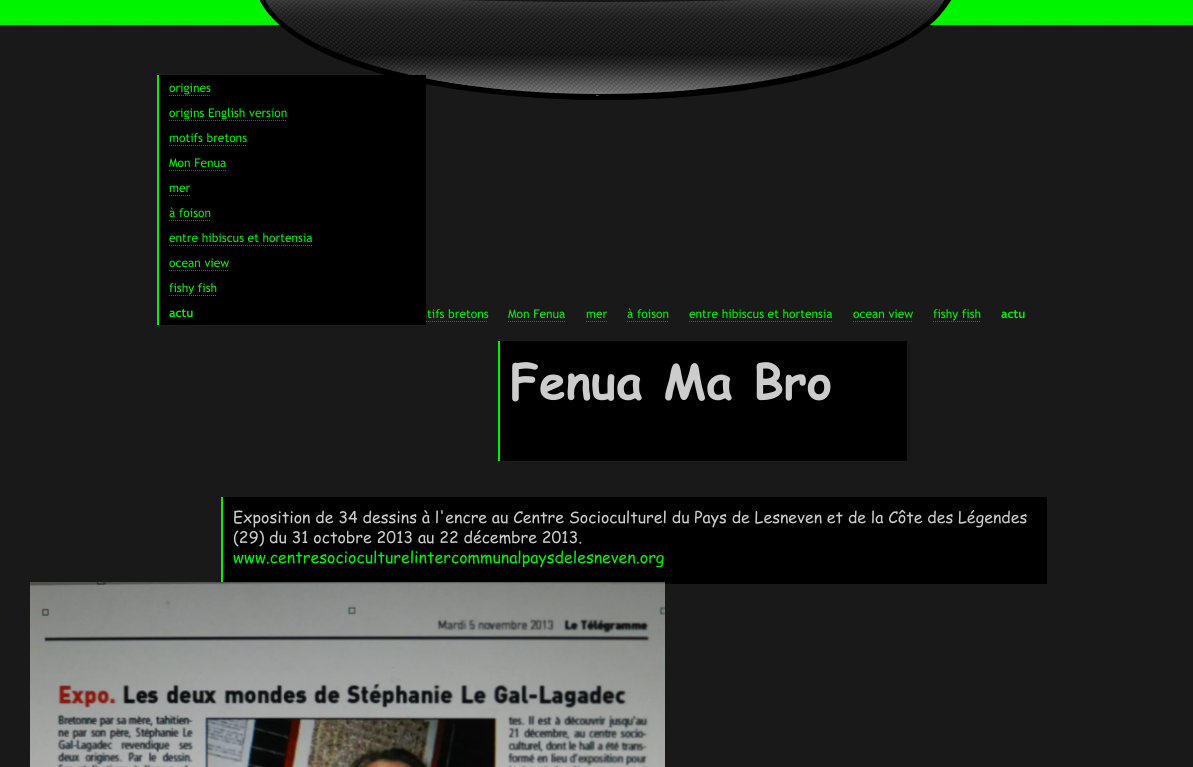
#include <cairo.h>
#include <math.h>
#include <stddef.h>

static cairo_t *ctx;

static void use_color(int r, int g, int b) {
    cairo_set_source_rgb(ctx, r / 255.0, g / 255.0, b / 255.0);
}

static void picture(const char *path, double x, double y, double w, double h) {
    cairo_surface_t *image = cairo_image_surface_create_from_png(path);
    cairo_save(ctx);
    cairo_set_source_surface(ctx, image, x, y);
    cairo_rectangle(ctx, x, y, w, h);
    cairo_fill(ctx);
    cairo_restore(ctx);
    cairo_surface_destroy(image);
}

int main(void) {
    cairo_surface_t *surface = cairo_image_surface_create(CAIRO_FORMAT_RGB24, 1193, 767);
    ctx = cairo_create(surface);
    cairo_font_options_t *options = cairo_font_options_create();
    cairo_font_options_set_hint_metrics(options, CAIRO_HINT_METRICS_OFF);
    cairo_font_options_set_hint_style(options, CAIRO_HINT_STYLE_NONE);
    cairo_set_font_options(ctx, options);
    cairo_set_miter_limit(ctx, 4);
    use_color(25, 25, 25);
    cairo_paint(ctx);
    picture("img1.png", 0, 0, 1193, 25);
    picture("img2.png", 255, 0, 700, 100);
    cairo_new_path(ctx);
    cairo_move_to(ctx, 410, 321.5);
    cairo_line_to(ctx, 488, 321.5);
    use_color(0, 148, 0);
    cairo_set_line_width(ctx, 1);
    cairo_set_dash(ctx, (double[]){1, 1}, 2, 0);
    cairo_stroke(ctx);
    use_color(0, 0, 0);
    cairo_rectangle(ctx, 159, 75, 267, 250);
    cairo_fill(ctx);
    use_color(0, 242, 0);
    cairo_rectangle(ctx, 157, 75, 2, 250);
    cairo_fill(ctx);
    cairo_select_font_face(ctx, "Trebuchet MS", CAIRO_FONT_SLANT_NORMAL, CAIRO_FONT_WEIGHT_NORMAL);
    cairo_set_font_size(ctx, 12);
    cairo_move_to(ctx, 169, 92);
    cairo_show_text(ctx, "origines");
    cairo_new_path(ctx);
    cairo_move_to(ctx, 169, 95.5);
    cairo_line_to(ctx, 211, 95.5);
    use_color(0, 148, 0);
    cairo_stroke(ctx);
    use_color(0, 242, 0);
    cairo_move_to(ctx, 169, 117);
    cairo_show_text(ctx, "origins English version");
    cairo_new_path(ctx);
    cairo_move_to(ctx, 169, 120.5);
    cairo_line_to(ctx, 287, 120.5);
    use_color(0, 148, 0);
    cairo_stroke(ctx);
    use_color(0, 242, 0);
    cairo_move_to(ctx, 169, 142);
    cairo_show_text(ctx, "motifs bretons");
    cairo_new_path(ctx);
    cairo_move_to(ctx, 169, 145.5);
    cairo_line_to(ctx, 247, 145.5);
    use_color(0, 148, 0);
    cairo_stroke(ctx);
    use_color(0, 242, 0);
    cairo_move_to(ctx, 169, 167);
    cairo_show_text(ctx, "Mon Fenua");
    cairo_new_path(ctx);
    cairo_move_to(ctx, 169, 170.5);
    cairo_line_to(ctx, 226, 170.5);
    use_color(0, 148, 0);
    cairo_stroke(ctx);
    use_color(0, 242, 0);
    cairo_move_to(ctx, 169, 192);
    cairo_show_text(ctx, "mer");
    cairo_new_path(ctx);
    cairo_move_to(ctx, 169, 195.5);
    cairo_line_to(ctx, 190, 195.5);
    use_color(0, 148, 0);
    cairo_stroke(ctx);
    use_color(0, 242, 0);
    cairo_move_to(ctx, 169, 217);
    cairo_show_text(ctx, "à foison");
    cairo_new_path(ctx);
    cairo_move_to(ctx, 169, 220.5);
    cairo_line_to(ctx, 211, 220.5);
    use_color(0, 148, 0);
    cairo_stroke(ctx);
    use_color(0, 242, 0);
    cairo_move_to(ctx, 169, 242);
    cairo_show_text(ctx, "entre hibiscus et hortensia");
    cairo_new_path(ctx);
    cairo_move_to(ctx, 169, 245.5);
    cairo_line_to(ctx, 313, 245.5);
    use_color(0, 148, 0);
    cairo_stroke(ctx);
    use_color(0, 242, 0);
    cairo_move_to(ctx, 169, 267);
    cairo_show_text(ctx, "ocean view");
    cairo_new_path(ctx);
    cairo_move_to(ctx, 169, 270.5);
    cairo_line_to(ctx, 229, 270.5);
    use_color(0, 148, 0);
    cairo_stroke(ctx);
    use_color(0, 242, 0);
    cairo_move_to(ctx, 169, 292);
    cairo_show_text(ctx, "fishy fish");
    cairo_new_path(ctx);
    cairo_move_to(ctx, 169, 295.5);
    cairo_line_to(ctx, 217, 295.5);
    use_color(0, 148, 0);
    cairo_stroke(ctx);
    cairo_select_font_face(ctx, "Trebuchet MS", CAIRO_FONT_SLANT_NORMAL, CAIRO_FONT_WEIGHT_BOLD);
    use_color(0, 242, 0);
    cairo_move_to(ctx, 169, 317);
    cairo_show_text(ctx, "actu");
    cairo_select_font_face(ctx, "Trebuchet MS", CAIRO_FONT_SLANT_NORMAL, CAIRO_FONT_WEIGHT_NORMAL);
    cairo_move_to(ctx, 427, 318);
    cairo_show_text(ctx, "tifs bretons");
    cairo_move_to(ctx, 508, 318);
    cairo_show_text(ctx, "Mon Fenua");
    cairo_new_path(ctx);
    cairo_move_to(ctx, 508, 321.5);
    cairo_line_to(ctx, 566, 321.5);
    use_color(0, 148, 0);
    cairo_stroke(ctx);
    use_color(0, 242, 0);
    cairo_move_to(ctx, 586, 318);
    cairo_show_text(ctx, "mer");
    cairo_new_path(ctx);
    cairo_move_to(ctx, 586, 321.5);
    cairo_line_to(ctx, 607, 321.5);
    use_color(0, 148, 0);
    cairo_stroke(ctx);
    use_color(0, 242, 0);
    cairo_move_to(ctx, 627, 318);
    cairo_show_text(ctx, "à foison");
    cairo_new_path(ctx);
    cairo_move_to(ctx, 627, 321.5);
    cairo_line_to(ctx, 669, 321.5);
    use_color(0, 148, 0);
    cairo_stroke(ctx);
    use_color(0, 242, 0);
    cairo_move_to(ctx, 689, 318);
    cairo_show_text(ctx, "entre hibiscus et hortensia");
    cairo_new_path(ctx);
    cairo_move_to(ctx, 689, 321.5);
    cairo_line_to(ctx, 833, 321.5);
    use_color(0, 148, 0);
    cairo_stroke(ctx);
    use_color(0, 242, 0);
    cairo_move_to(ctx, 853, 318);
    cairo_show_text(ctx, "ocean view");
    cairo_new_path(ctx);
    cairo_move_to(ctx, 853, 321.5);
    cairo_line_to(ctx, 913, 321.5);
    use_color(0, 148, 0);
    cairo_stroke(ctx);
    use_color(0, 242, 0);
    cairo_move_to(ctx, 933, 318);
    cairo_show_text(ctx, "fishy fish");
    cairo_new_path(ctx);
    cairo_move_to(ctx, 933, 321.5);
    cairo_line_to(ctx, 981, 321.5);
    use_color(0, 148, 0);
    cairo_stroke(ctx);
    cairo_select_font_face(ctx, "Trebuchet MS", CAIRO_FONT_SLANT_NORMAL, CAIRO_FONT_WEIGHT_BOLD);
    use_color(0, 242, 0);
    cairo_move_to(ctx, 1001, 318);
    cairo_show_text(ctx, "actu");
    use_color(0, 0, 0);
    cairo_rectangle(ctx, 500, 341, 407, 120);
    cairo_fill(ctx);
    use_color(0, 242, 0);
    cairo_rectangle(ctx, 498, 341, 2, 120);
    cairo_fill(ctx);
    cairo_select_font_face(ctx, "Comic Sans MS", CAIRO_FONT_SLANT_NORMAL, CAIRO_FONT_WEIGHT_BOLD);
    cairo_set_font_size(ctx, 48);
    use_color(204, 204, 204);
    cairo_move_to(ctx, 510, 399);
    cairo_show_text(ctx, "Fenua Ma Bro");
    use_color(0, 0, 0);
    cairo_rectangle(ctx, 223, 497, 824, 87);
    cairo_fill(ctx);
    use_color(0, 242, 0);
    cairo_rectangle(ctx, 221, 497, 2, 87);
    cairo_fill(ctx);
    cairo_select_font_face(ctx, "Comic Sans MS", CAIRO_FONT_SLANT_NORMAL, CAIRO_FONT_WEIGHT_NORMAL);
    cairo_set_font_size(ctx, 16);
    use_color(204, 204, 204);
    cairo_move_to(ctx, 233, 523);
    cairo_show_text(ctx, "Exposition de 34 dessins à l'encre au Centre Socioculturel du Pays de Lesneven et de la Côte des Légendes");
    cairo_move_to(ctx, 233, 543);
    cairo_show_text(ctx, "(29) du 31 octobre 2013 au 22 décembre 2013.");
    cairo_save(ctx);
    cairo_rectangle(ctx, 233, 507, 804, 60);
    cairo_clip(ctx);
    use_color(0, 242, 0);
    cairo_move_to(ctx, 233, 563);
    cairo_show_text(ctx, "www.centresocioculturelintercommunalpaysdelesneven.org");
    cairo_restore(ctx);
    picture("img3.png", 30, 582, 635, 185);
    cairo_surface_write_to_png(surface, "result.png");
    cairo_font_options_destroy(options);
    cairo_destroy(ctx);
    cairo_surface_destroy(surface);
    return 0;
}
